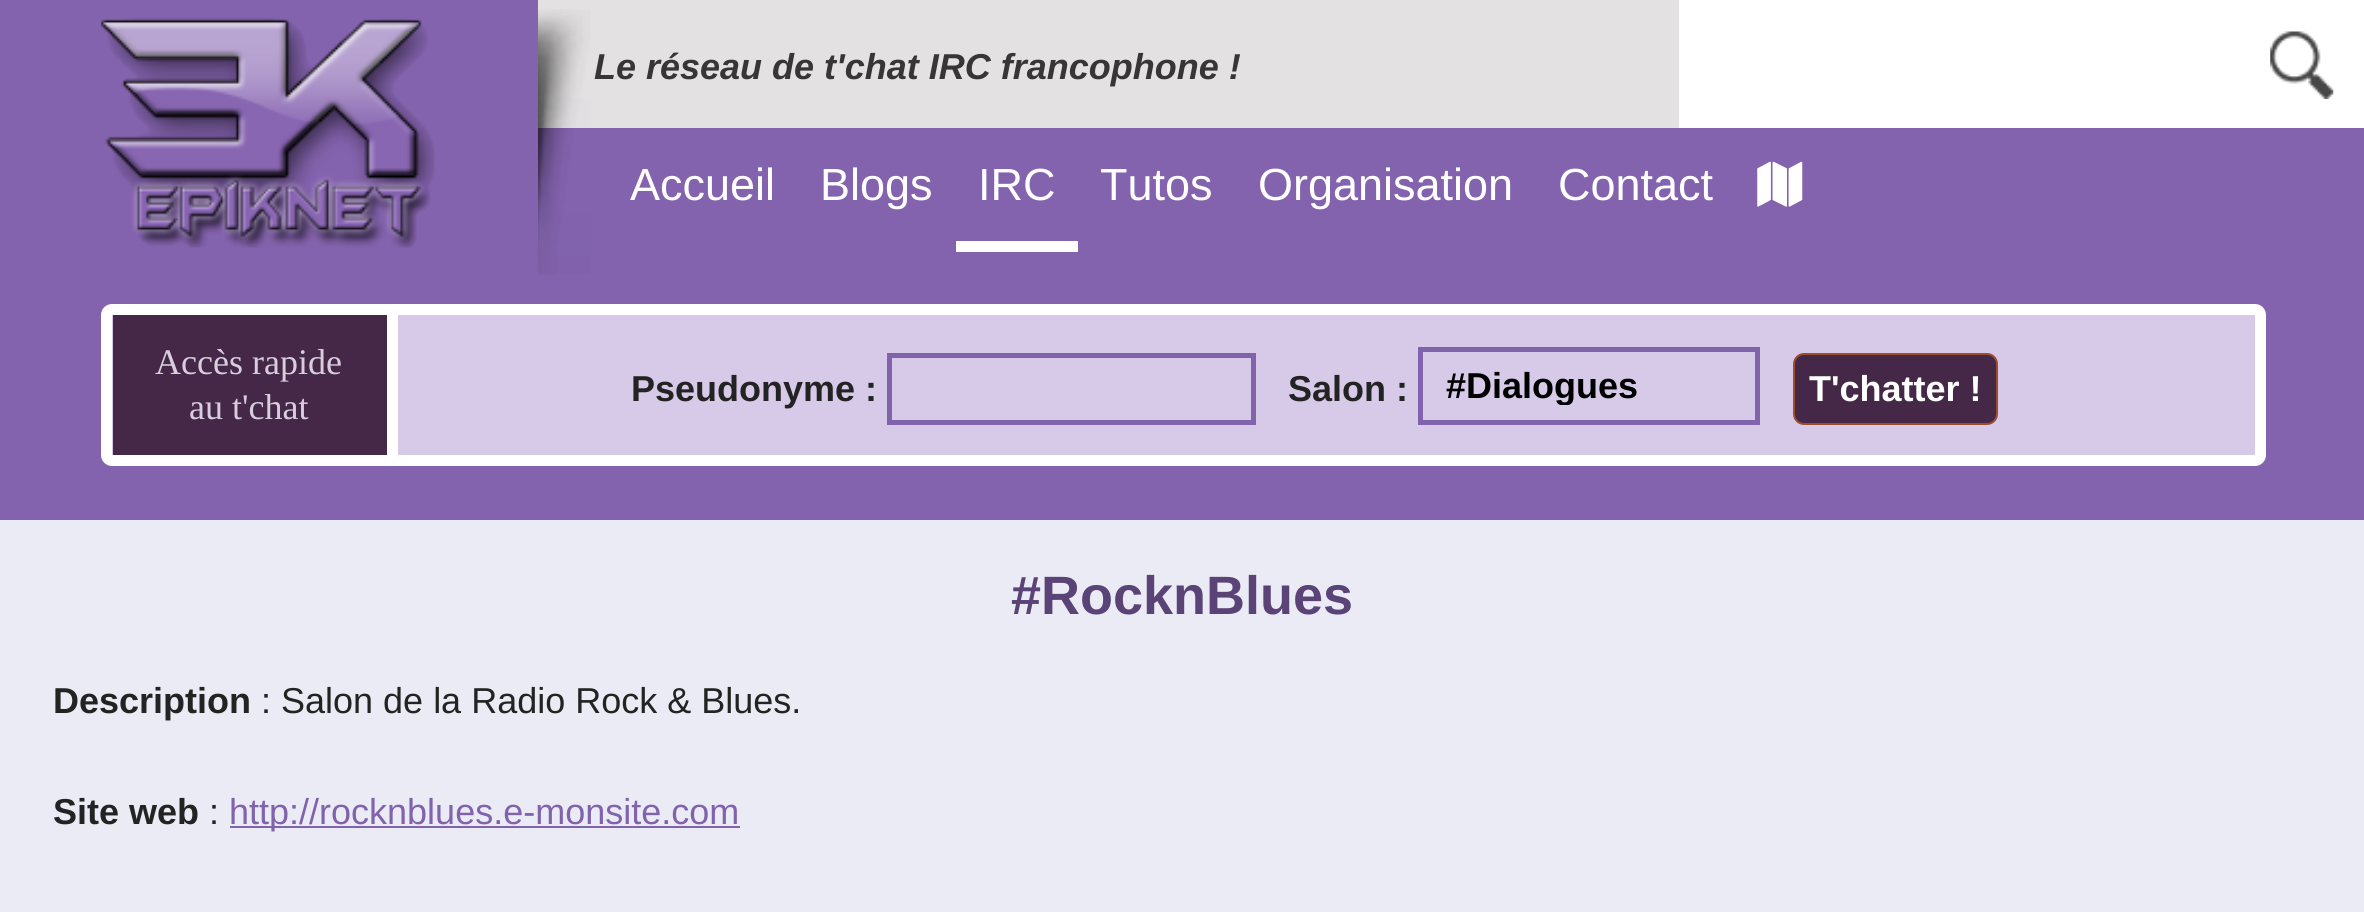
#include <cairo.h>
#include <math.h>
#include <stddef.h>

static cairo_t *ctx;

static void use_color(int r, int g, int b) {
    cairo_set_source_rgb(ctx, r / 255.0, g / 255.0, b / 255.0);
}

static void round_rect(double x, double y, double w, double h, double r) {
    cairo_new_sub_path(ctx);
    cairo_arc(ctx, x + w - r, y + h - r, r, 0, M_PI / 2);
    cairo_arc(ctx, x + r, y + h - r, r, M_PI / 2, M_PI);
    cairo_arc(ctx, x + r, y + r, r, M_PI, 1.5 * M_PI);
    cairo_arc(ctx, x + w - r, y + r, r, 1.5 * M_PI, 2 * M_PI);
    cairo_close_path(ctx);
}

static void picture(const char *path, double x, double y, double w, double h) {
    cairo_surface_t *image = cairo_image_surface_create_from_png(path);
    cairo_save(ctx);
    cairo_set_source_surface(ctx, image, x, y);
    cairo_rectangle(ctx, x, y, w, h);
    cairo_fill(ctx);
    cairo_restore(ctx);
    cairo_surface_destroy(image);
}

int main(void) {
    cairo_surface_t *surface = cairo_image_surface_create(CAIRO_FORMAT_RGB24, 2364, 912);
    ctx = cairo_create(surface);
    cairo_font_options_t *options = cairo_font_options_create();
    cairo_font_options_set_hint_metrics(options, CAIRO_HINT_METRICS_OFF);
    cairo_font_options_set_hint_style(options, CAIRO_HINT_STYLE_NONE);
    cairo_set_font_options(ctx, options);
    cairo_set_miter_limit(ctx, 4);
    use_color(132, 99, 174);
    cairo_paint(ctx);
    use_color(227, 225, 226);
    cairo_rectangle(ctx, 538, 0, 1141, 128);
    cairo_fill(ctx);
    picture("img1.png", 538, 9, 53, 266);
    picture("img2.png", 101, 17, 334, 231);
    cairo_select_font_face(ctx, "Liberation Sans", CAIRO_FONT_SLANT_ITALIC, CAIRO_FONT_WEIGHT_BOLD);
    cairo_set_font_size(ctx, 36);
    use_color(55, 54, 54);
    cairo_move_to(ctx, 594, 79);
    cairo_show_text(ctx, "Le réseau de t'chat IRC francophone !");
    use_color(255, 255, 255);
    cairo_rectangle(ctx, 1679, 0, 685, 128);
    cairo_fill(ctx);
    picture("img3.png", 2270, 31, 64, 68);
    cairo_select_font_face(ctx, "Liberation Sans", CAIRO_FONT_SLANT_NORMAL, CAIRO_FONT_WEIGHT_NORMAL);
    cairo_set_font_size(ctx, 45);
    cairo_move_to(ctx, 630, 200);
    cairo_show_text(ctx, "Accueil");
    cairo_move_to(ctx, 820, 200);
    cairo_show_text(ctx, "Blogs");
    cairo_rectangle(ctx, 956, 241, 122, 11);
    cairo_fill(ctx);
    cairo_move_to(ctx, 978, 200);
    cairo_show_text(ctx, "IRC");
    cairo_move_to(ctx, 1100, 200);
    cairo_show_text(ctx, "Tutos");
    cairo_move_to(ctx, 1258, 200);
    cairo_show_text(ctx, "Organisation");
    cairo_move_to(ctx, 1558, 200);
    cairo_show_text(ctx, "Contact");
    picture("img4.png", 1757, 161, 46, 46);
    use_color(215, 202, 232);
    round_rect(106.5, 309.5, 2154, 151, 5.5);
    cairo_fill_preserve(ctx);
    use_color(255, 255, 255);
    cairo_set_line_width(ctx, 11);
    cairo_stroke(ctx);
    use_color(69, 40, 71);
    cairo_rectangle(ctx, 113, 315, 274, 140);
    cairo_fill(ctx);
    use_color(255, 255, 255);
    cairo_rectangle(ctx, 387, 315, 11, 140);
    cairo_fill(ctx);
    cairo_select_font_face(ctx, "Liberation Serif", CAIRO_FONT_SLANT_NORMAL, CAIRO_FONT_WEIGHT_NORMAL);
    cairo_set_font_size(ctx, 36);
    use_color(216, 206, 223);
    cairo_move_to(ctx, 155, 374);
    cairo_show_text(ctx, "Accès rapide");
    cairo_move_to(ctx, 189, 419);
    cairo_show_text(ctx, "au t'chat");
    cairo_select_font_face(ctx, "Liberation Sans", CAIRO_FONT_SLANT_NORMAL, CAIRO_FONT_WEIGHT_BOLD);
    use_color(35, 35, 35);
    cairo_move_to(ctx, 631, 401);
    cairo_show_text(ctx, "Pseudonyme :");
    cairo_rectangle(ctx, 889.5, 355.5, 364, 67);
    use_color(129, 98, 172);
    cairo_set_line_width(ctx, 5);
    cairo_stroke(ctx);
    use_color(35, 35, 35);
    cairo_move_to(ctx, 1288, 401);
    cairo_show_text(ctx, "Salon :");
    cairo_rectangle(ctx, 1420.5, 349.5, 337, 73);
    use_color(129, 98, 172);
    cairo_stroke(ctx);
    cairo_save(ctx);
    cairo_rectangle(ctx, 1445, 367, 288, 38);
    cairo_clip(ctx);
    use_color(0, 0, 0);
    cairo_move_to(ctx, 1446, 398);
    cairo_show_text(ctx, "#Dialogues");
    cairo_restore(ctx);
    use_color(69, 40, 71);
    round_rect(1794, 354, 203, 70, 10);
    cairo_fill_preserve(ctx);
    use_color(157, 77, 44);
    cairo_set_line_width(ctx, 2);
    cairo_stroke(ctx);
    use_color(255, 255, 255);
    cairo_move_to(ctx, 1809, 401);
    cairo_show_text(ctx, "T'chatter !");
    use_color(235, 235, 245);
    cairo_rectangle(ctx, 0, 520, 2364, 392);
    cairo_fill(ctx);
    cairo_set_font_size(ctx, 54);
    use_color(90, 68, 119);
    cairo_move_to(ctx, 1011, 614);
    cairo_show_text(ctx, "#RocknBlues");
    cairo_set_font_size(ctx, 36);
    use_color(35, 35, 35);
    cairo_move_to(ctx, 53, 713);
    cairo_show_text(ctx, "Description");
    cairo_select_font_face(ctx, "Liberation Sans", CAIRO_FONT_SLANT_NORMAL, CAIRO_FONT_WEIGHT_NORMAL);
    cairo_move_to(ctx, 261, 713);
    cairo_show_text(ctx, ": Salon de la Radio Rock & Blues.");
    cairo_select_font_face(ctx, "Liberation Sans", CAIRO_FONT_SLANT_NORMAL, CAIRO_FONT_WEIGHT_BOLD);
    cairo_move_to(ctx, 53, 824);
    cairo_show_text(ctx, "Site web");
    cairo_select_font_face(ctx, "Liberation Sans", CAIRO_FONT_SLANT_NORMAL, CAIRO_FONT_WEIGHT_NORMAL);
    cairo_move_to(ctx, 209, 824);
    cairo_show_text(ctx, ":");
    use_color(129, 98, 172);
    cairo_rectangle(ctx, 230, 826, 510, 2);
    cairo_fill(ctx);
    cairo_move_to(ctx, 229, 824);
    cairo_show_text(ctx, "http://rocknblues.e-monsite.com");
    cairo_surface_write_to_png(surface, "result.png");
    cairo_font_options_destroy(options);
    cairo_destroy(ctx);
    cairo_surface_destroy(surface);
    return 0;
}
